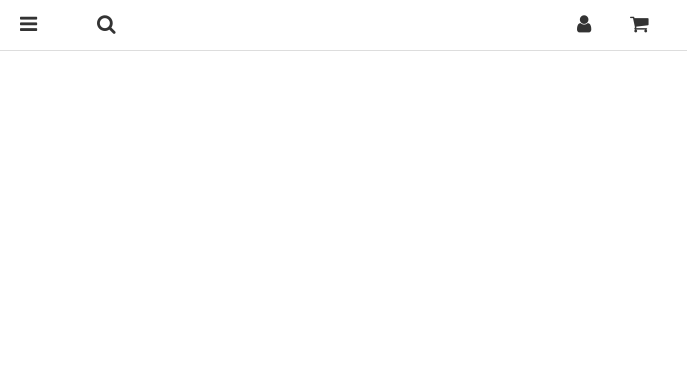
#include <cairo.h>
#include <math.h>
#include <stddef.h>

static cairo_t *ctx;

static void use_color(int r, int g, int b) {
    cairo_set_source_rgb(ctx, r / 255.0, g / 255.0, b / 255.0);
}

static void picture(const char *path, double x, double y, double w, double h) {
    cairo_surface_t *image = cairo_image_surface_create_from_png(path);
    cairo_save(ctx);
    cairo_set_source_surface(ctx, image, x, y);
    cairo_rectangle(ctx, x, y, w, h);
    cairo_fill(ctx);
    cairo_restore(ctx);
    cairo_surface_destroy(image);
}

int main(void) {
    cairo_surface_t *surface = cairo_image_surface_create(CAIRO_FORMAT_RGB24, 687, 376);
    ctx = cairo_create(surface);
    cairo_font_options_t *options = cairo_font_options_create();
    cairo_font_options_set_hint_metrics(options, CAIRO_HINT_METRICS_OFF);
    cairo_font_options_set_hint_style(options, CAIRO_HINT_STYLE_NONE);
    cairo_set_font_options(ctx, options);
    cairo_set_miter_limit(ctx, 4);
    use_color(255, 255, 255);
    cairo_paint(ctx);
    use_color(221, 221, 221);
    cairo_rectangle(ctx, 0, 50, 687, 1);
    cairo_fill(ctx);
    picture("img1.png", 20, 16, 18, 15);
    picture("img2.png", 97, 15, 19, 19);
    picture("img3.png", 577, 15, 15, 18);
    picture("img4.png", 630, 16, 19, 17);
    cairo_surface_write_to_png(surface, "result.png");
    cairo_font_options_destroy(options);
    cairo_destroy(ctx);
    cairo_surface_destroy(surface);
    return 0;
}
